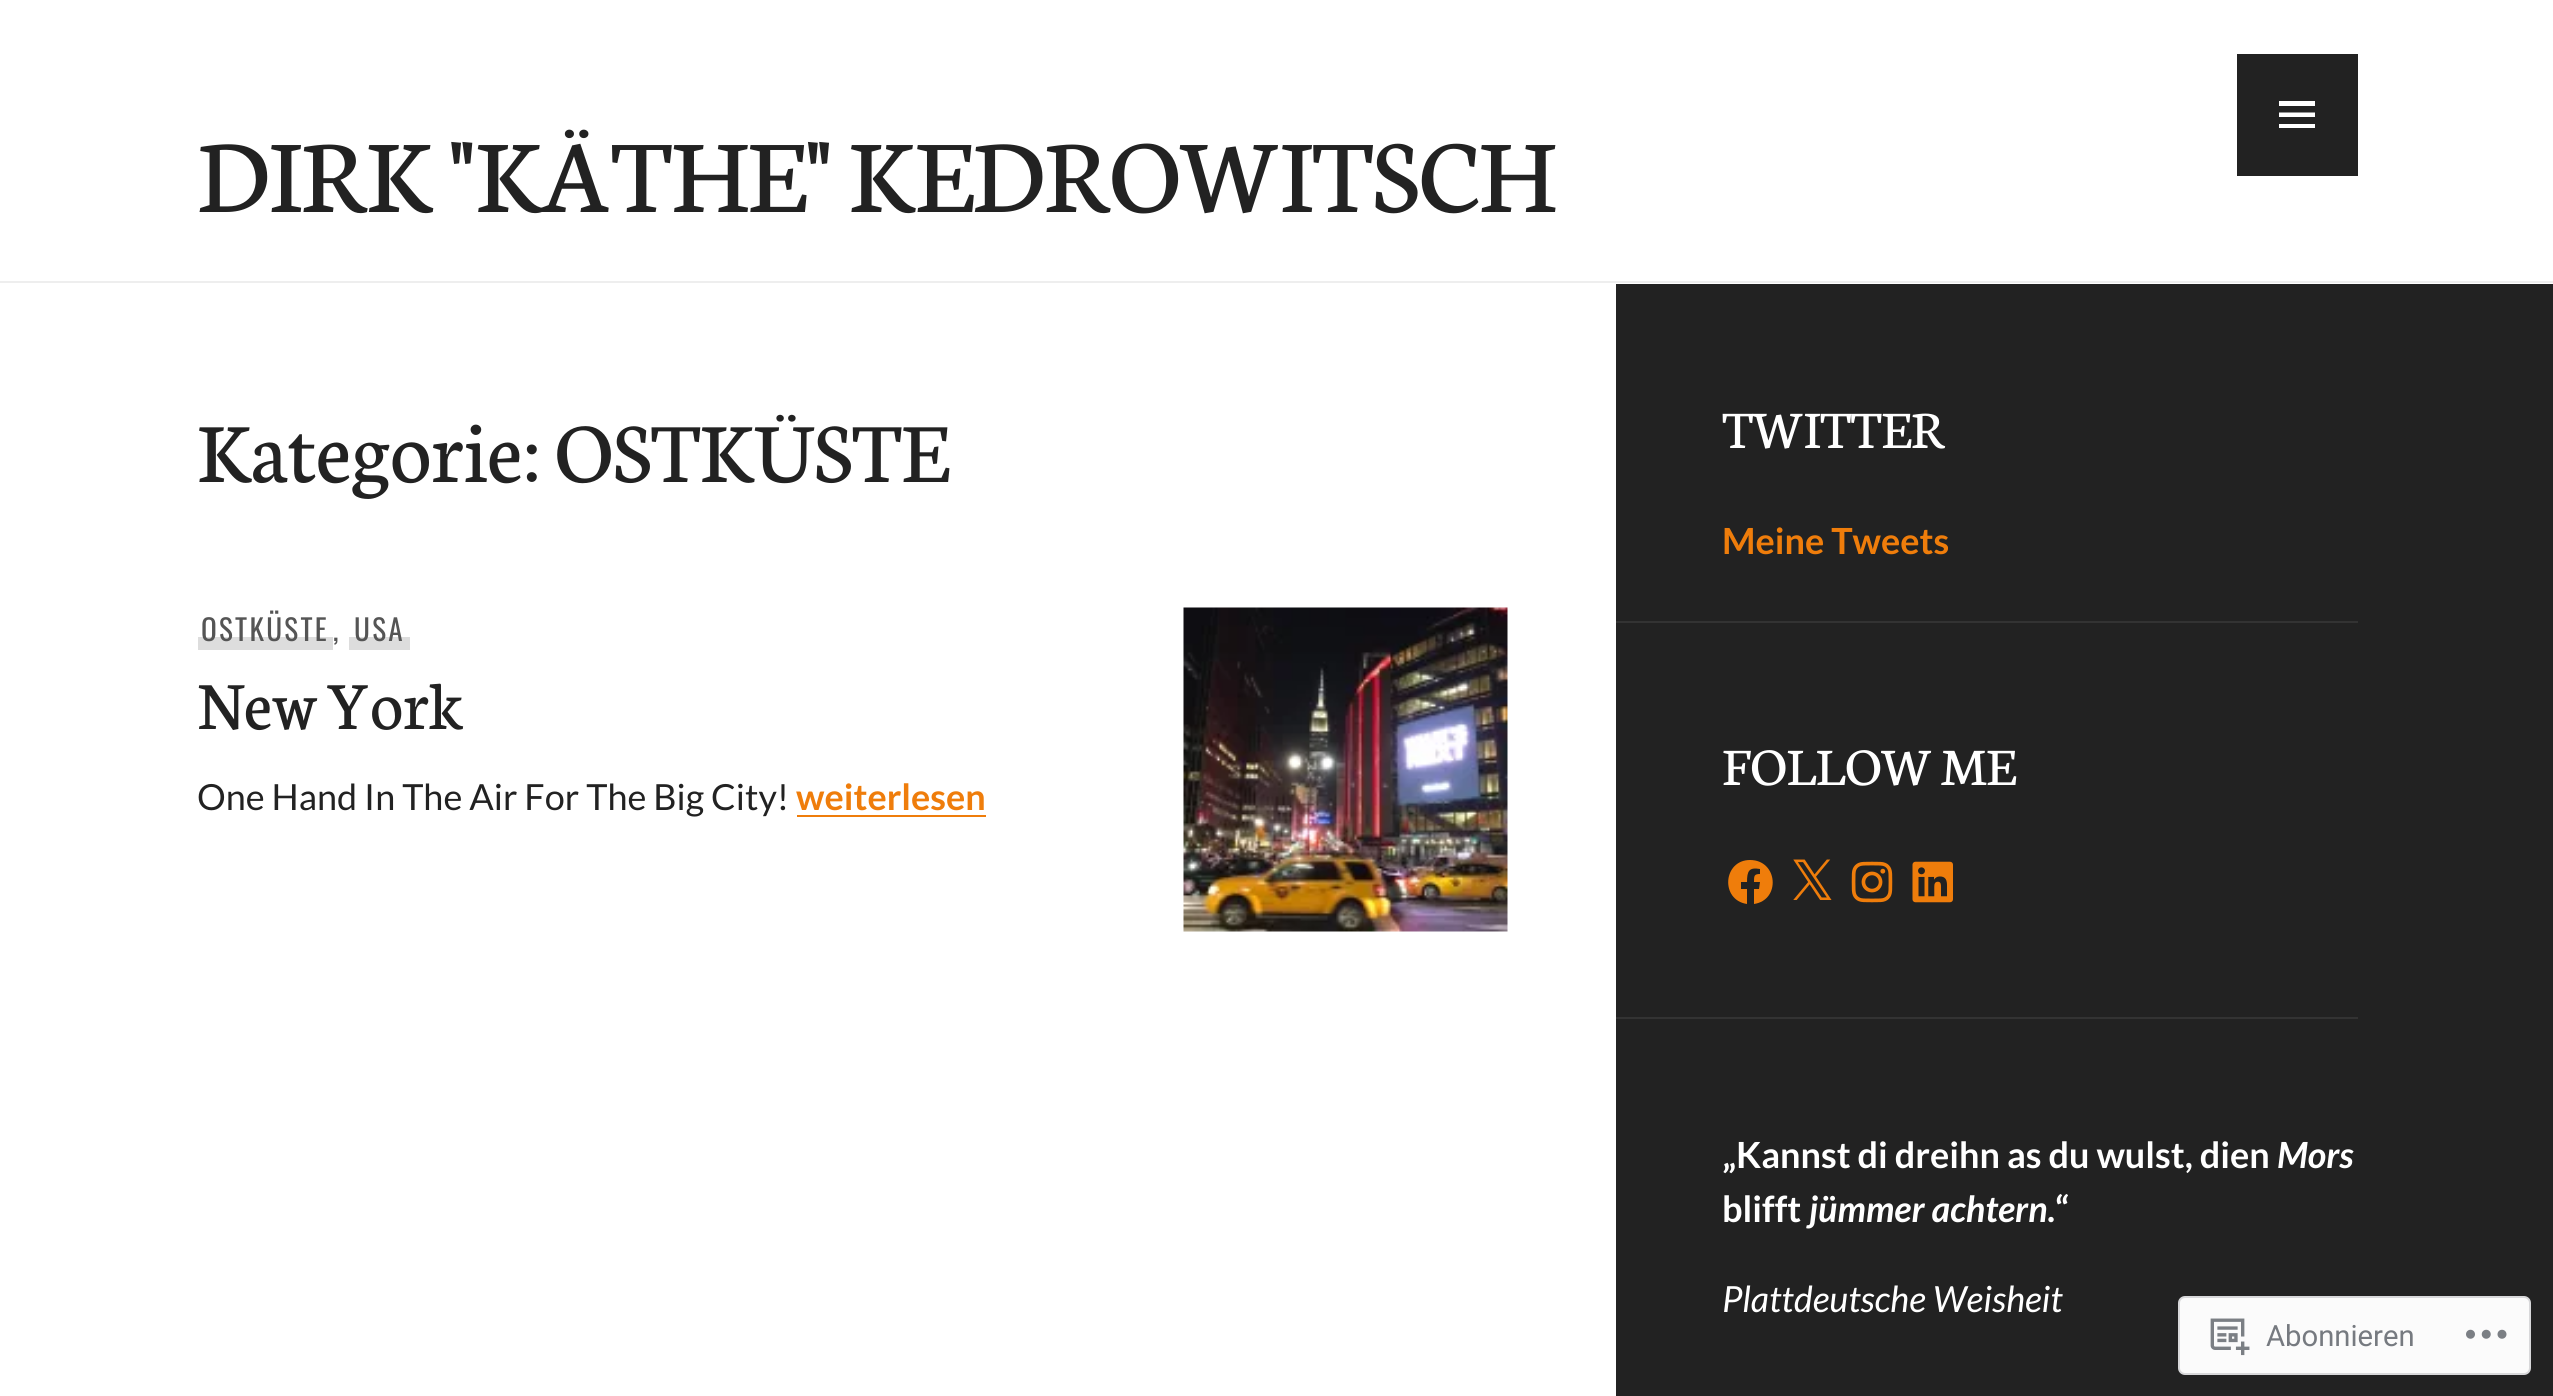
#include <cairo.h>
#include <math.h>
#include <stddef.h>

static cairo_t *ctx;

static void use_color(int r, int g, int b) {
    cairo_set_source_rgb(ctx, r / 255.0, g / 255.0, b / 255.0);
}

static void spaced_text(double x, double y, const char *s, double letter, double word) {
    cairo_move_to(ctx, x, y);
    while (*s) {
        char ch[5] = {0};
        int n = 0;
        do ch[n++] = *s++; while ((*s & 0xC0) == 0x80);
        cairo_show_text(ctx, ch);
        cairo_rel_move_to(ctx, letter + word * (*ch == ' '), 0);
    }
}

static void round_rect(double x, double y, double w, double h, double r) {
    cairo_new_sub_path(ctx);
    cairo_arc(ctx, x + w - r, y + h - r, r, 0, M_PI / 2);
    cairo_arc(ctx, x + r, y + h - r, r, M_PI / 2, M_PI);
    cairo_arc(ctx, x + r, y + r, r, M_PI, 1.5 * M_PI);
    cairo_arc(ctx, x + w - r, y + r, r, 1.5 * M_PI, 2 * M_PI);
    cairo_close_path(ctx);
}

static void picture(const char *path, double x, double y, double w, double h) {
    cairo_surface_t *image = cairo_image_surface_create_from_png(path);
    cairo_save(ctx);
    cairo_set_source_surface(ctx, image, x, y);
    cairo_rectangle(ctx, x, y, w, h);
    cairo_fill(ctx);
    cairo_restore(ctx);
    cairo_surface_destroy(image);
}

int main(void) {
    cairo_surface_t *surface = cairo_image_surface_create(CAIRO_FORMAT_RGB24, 2553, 1396);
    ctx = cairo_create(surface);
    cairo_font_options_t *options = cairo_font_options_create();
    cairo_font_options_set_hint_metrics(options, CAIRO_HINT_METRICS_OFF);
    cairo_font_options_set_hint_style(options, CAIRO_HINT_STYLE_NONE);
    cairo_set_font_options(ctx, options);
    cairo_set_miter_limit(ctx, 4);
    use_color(255, 255, 255);
    cairo_paint(ctx);
    use_color(238, 238, 238);
    cairo_rectangle(ctx, 0, 281, 2553, 2);
    cairo_fill(ctx);
    cairo_select_font_face(ctx, "Neuton", CAIRO_FONT_SLANT_NORMAL, CAIRO_FONT_WEIGHT_NORMAL);
    cairo_set_font_size(ctx, 110.25);
    use_color(34, 34, 34);
    cairo_move_to(ctx, 197, 212);
    cairo_show_text(ctx, "DIRK \"KÄTHE\" KEDROWITSCH");
    cairo_rectangle(ctx, 2237, 54, 121, 122);
    cairo_fill(ctx);
    use_color(255, 255, 255);
    cairo_new_path(ctx);
    cairo_move_to(ctx, 2279, 101);
    cairo_line_to(ctx, 2315, 101);
    cairo_line_to(ctx, 2315, 106);
    cairo_line_to(ctx, 2279, 106);
    cairo_close_path(ctx);
    cairo_move_to(ctx, 2279, 112.5);
    cairo_line_to(ctx, 2315, 112.5);
    cairo_line_to(ctx, 2315, 117);
    cairo_line_to(ctx, 2279, 117);
    cairo_close_path(ctx);
    cairo_move_to(ctx, 2279, 124);
    cairo_line_to(ctx, 2315, 124);
    cairo_line_to(ctx, 2315, 128);
    cairo_line_to(ctx, 2279, 128);
    cairo_close_path(ctx);
    cairo_fill(ctx);
    use_color(34, 34, 34);
    cairo_rectangle(ctx, 1616, 284, 937, 1112);
    cairo_fill(ctx);
    cairo_set_font_size(ctx, 90);
    cairo_move_to(ctx, 197, 482);
    cairo_show_text(ctx, "Kategorie: OSTKÜSTE");
    use_color(221, 221, 221);
    cairo_rectangle(ctx, 198, 637, 135, 13);
    cairo_fill(ctx);
    cairo_select_font_face(ctx, "Oswald", CAIRO_FONT_SLANT_NORMAL, CAIRO_FONT_WEIGHT_NORMAL);
    cairo_set_font_size(ctx, 29.25);
    use_color(85, 85, 85);
    spaced_text(201, 641, "OSTKÜSTE", 2.25, 0);
    spaced_text(333, 641, ",", 2.25, 0);
    use_color(221, 221, 221);
    cairo_rectangle(ctx, 349, 637, 61, 13);
    cairo_fill(ctx);
    use_color(85, 85, 85);
    spaced_text(354, 641, "USA", 2.25, 0);
    cairo_select_font_face(ctx, "Neuton", CAIRO_FONT_SLANT_NORMAL, CAIRO_FONT_WEIGHT_NORMAL);
    cairo_set_font_size(ctx, 72);
    use_color(34, 34, 34);
    cairo_move_to(ctx, 197, 729);
    cairo_show_text(ctx, "New York");
    picture("img1.png", 1183, 607, 325, 325);
    cairo_select_font_face(ctx, "Lato", CAIRO_FONT_SLANT_NORMAL, CAIRO_FONT_WEIGHT_NORMAL);
    cairo_set_font_size(ctx, 36);
    cairo_move_to(ctx, 197, 810);
    cairo_show_text(ctx, "One Hand In The Air For The Big City!");
    cairo_select_font_face(ctx, "Lato", CAIRO_FONT_SLANT_NORMAL, CAIRO_FONT_WEIGHT_BOLD);
    use_color(239, 125, 11);
    cairo_move_to(ctx, 796, 810);
    cairo_show_text(ctx, "weiterlesen");
    cairo_rectangle(ctx, 797, 815, 189, 2);
    cairo_fill(ctx);
    use_color(51, 51, 51);
    cairo_rectangle(ctx, 1616, 621, 742, 2);
    cairo_fill(ctx);
    cairo_select_font_face(ctx, "Neuton", CAIRO_FONT_SLANT_NORMAL, CAIRO_FONT_WEIGHT_NORMAL);
    cairo_set_font_size(ctx, 56.25);
    use_color(255, 255, 255);
    cairo_move_to(ctx, 1722, 448);
    cairo_show_text(ctx, "TWITTER");
    cairo_select_font_face(ctx, "Lato", CAIRO_FONT_SLANT_NORMAL, CAIRO_FONT_WEIGHT_BOLD);
    cairo_set_font_size(ctx, 36);
    use_color(239, 125, 11);
    cairo_move_to(ctx, 1722, 554);
    cairo_show_text(ctx, "Meine Tweets");
    use_color(51, 51, 51);
    cairo_rectangle(ctx, 1616, 1017, 742, 2);
    cairo_fill(ctx);
    cairo_select_font_face(ctx, "Neuton", CAIRO_FONT_SLANT_NORMAL, CAIRO_FONT_WEIGHT_NORMAL);
    cairo_set_font_size(ctx, 56.25);
    use_color(255, 255, 255);
    cairo_move_to(ctx, 1722, 785);
    cairo_show_text(ctx, "FOLLOW ME");
    use_color(239, 125, 11);
    cairo_new_path(ctx);
    cairo_move_to(ctx, 1750, 860);
    cairo_curve_to(ctx, 1723, 860, 1720, 900, 1747, 904);
    cairo_line_to(ctx, 1747, 889);
    cairo_line_to(ctx, 1741, 889);
    cairo_line_to(ctx, 1741, 882);
    cairo_line_to(ctx, 1747, 882);
    cairo_curve_to(ctx, 1747, 871, 1749, 867, 1760, 869);
    cairo_line_to(ctx, 1760, 874);
    cairo_curve_to(ctx, 1754, 874, 1754, 876, 1754, 882);
    cairo_line_to(ctx, 1760, 882);
    cairo_line_to(ctx, 1759, 889);
    cairo_line_to(ctx, 1754, 889);
    cairo_line_to(ctx, 1754, 904);
    cairo_curve_to(ctx, 1781, 900, 1778, 860, 1750, 860);
    cairo_close_path(ctx);
    cairo_fill(ctx);
    picture("img2.png", 1793, 859, 39, 41);
    picture("img3.png", 1851, 861, 42, 42);
    picture("img4.png", 1912, 861, 41, 42);
    cairo_select_font_face(ctx, "Lato", CAIRO_FONT_SLANT_NORMAL, CAIRO_FONT_WEIGHT_BOLD);
    cairo_set_font_size(ctx, 36);
    use_color(255, 255, 255);
    cairo_move_to(ctx, 1722, 1168);
    cairo_show_text(ctx, "„Kannst di dreihn as du wulst, dien");
    cairo_select_font_face(ctx, "Lato", CAIRO_FONT_SLANT_ITALIC, CAIRO_FONT_WEIGHT_BOLD);
    cairo_move_to(ctx, 2277, 1168);
    cairo_show_text(ctx, "Mors");
    cairo_select_font_face(ctx, "Lato", CAIRO_FONT_SLANT_NORMAL, CAIRO_FONT_WEIGHT_BOLD);
    cairo_move_to(ctx, 1722, 1222);
    cairo_show_text(ctx, "blifft");
    cairo_select_font_face(ctx, "Lato", CAIRO_FONT_SLANT_ITALIC, CAIRO_FONT_WEIGHT_BOLD);
    cairo_move_to(ctx, 1809, 1222);
    cairo_show_text(ctx, "jümmer achtern");
    cairo_select_font_face(ctx, "Lato", CAIRO_FONT_SLANT_NORMAL, CAIRO_FONT_WEIGHT_BOLD);
    cairo_move_to(ctx, 2047, 1222);
    cairo_show_text(ctx, ".“");
    cairo_select_font_face(ctx, "Lato", CAIRO_FONT_SLANT_ITALIC, CAIRO_FONT_WEIGHT_NORMAL);
    cairo_move_to(ctx, 1722, 1312);
    cairo_show_text(ctx, "Plattdeutsche Weisheit");
    use_color(251, 251, 251);
    round_rect(2179, 1297, 351, 77, 6);
    cairo_fill_preserve(ctx);
    use_color(216, 216, 218);
    cairo_stroke(ctx);
    picture("img5.png", 2210, 1318, 40, 38);
    cairo_select_font_face(ctx, "Roboto", CAIRO_FONT_SLANT_NORMAL, CAIRO_FONT_WEIGHT_NORMAL);
    cairo_set_font_size(ctx, 29.25);
    use_color(118, 122, 128);
    cairo_move_to(ctx, 2266, 1346);
    cairo_show_text(ctx, "Abonnieren");
    picture("img6.png", 2466, 1329, 41, 10);
    cairo_surface_write_to_png(surface, "result.png");
    cairo_font_options_destroy(options);
    cairo_destroy(ctx);
    cairo_surface_destroy(surface);
    return 0;
}
